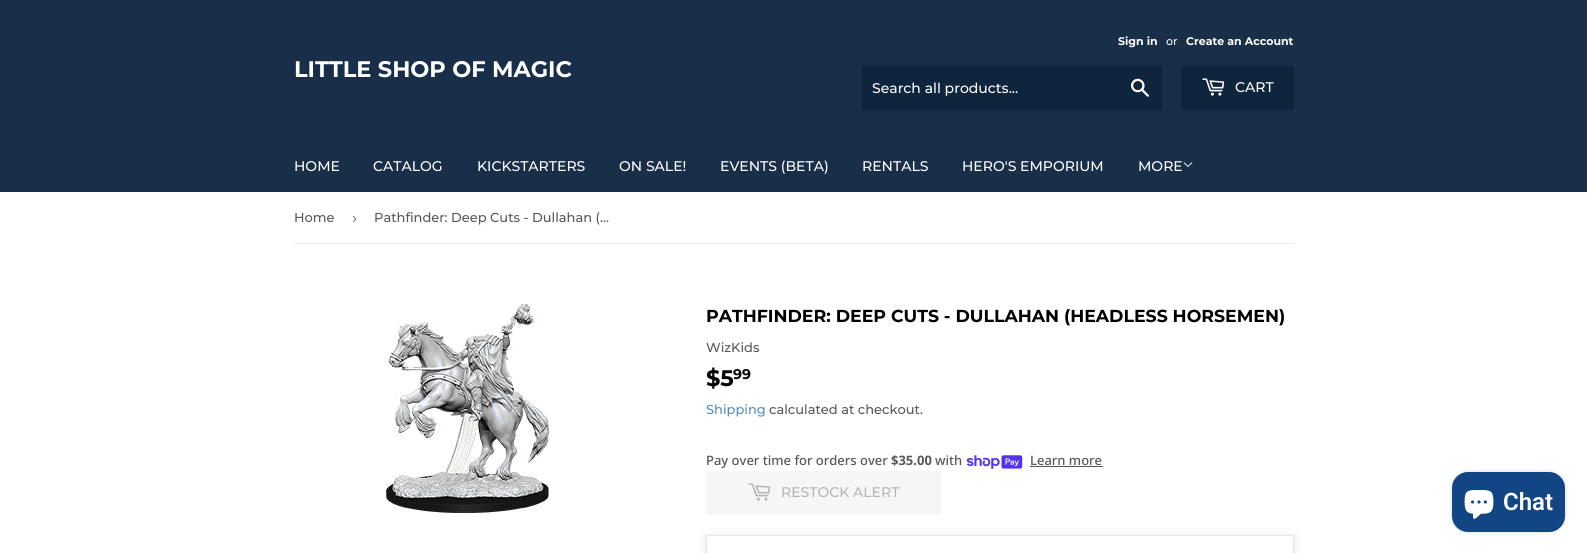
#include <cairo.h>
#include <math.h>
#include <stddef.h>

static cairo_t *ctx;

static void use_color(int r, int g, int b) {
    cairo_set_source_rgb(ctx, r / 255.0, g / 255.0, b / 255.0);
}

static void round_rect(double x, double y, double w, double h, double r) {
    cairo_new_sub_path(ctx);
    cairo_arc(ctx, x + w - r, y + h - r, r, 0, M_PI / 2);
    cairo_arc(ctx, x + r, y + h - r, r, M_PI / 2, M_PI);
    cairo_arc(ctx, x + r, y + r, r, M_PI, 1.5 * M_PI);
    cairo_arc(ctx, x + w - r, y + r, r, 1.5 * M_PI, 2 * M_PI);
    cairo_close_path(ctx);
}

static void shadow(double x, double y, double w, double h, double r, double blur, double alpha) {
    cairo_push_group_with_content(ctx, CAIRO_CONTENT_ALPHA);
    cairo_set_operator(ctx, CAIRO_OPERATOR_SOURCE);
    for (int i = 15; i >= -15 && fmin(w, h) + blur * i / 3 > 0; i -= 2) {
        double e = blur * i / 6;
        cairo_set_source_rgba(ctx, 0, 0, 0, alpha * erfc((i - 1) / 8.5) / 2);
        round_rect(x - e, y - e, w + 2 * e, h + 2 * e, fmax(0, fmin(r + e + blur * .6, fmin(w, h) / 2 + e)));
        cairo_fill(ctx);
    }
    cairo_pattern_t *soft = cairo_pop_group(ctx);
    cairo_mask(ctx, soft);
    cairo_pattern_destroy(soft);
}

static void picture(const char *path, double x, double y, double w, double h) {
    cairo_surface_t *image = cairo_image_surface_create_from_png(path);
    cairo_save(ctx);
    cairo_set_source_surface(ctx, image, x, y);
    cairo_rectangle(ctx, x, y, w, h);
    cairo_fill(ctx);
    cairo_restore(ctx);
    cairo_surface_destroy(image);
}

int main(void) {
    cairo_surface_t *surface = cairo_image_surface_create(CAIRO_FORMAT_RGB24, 1587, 553);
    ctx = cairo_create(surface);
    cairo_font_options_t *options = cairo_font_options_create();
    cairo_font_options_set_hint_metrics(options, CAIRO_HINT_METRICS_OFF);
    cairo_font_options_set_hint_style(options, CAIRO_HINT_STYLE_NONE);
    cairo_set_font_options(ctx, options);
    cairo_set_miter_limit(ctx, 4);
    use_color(255, 255, 255);
    cairo_paint(ctx);
    use_color(24, 46, 73);
    cairo_rectangle(ctx, 0, 0, 1587, 192);
    cairo_fill(ctx);
    cairo_select_font_face(ctx, "Montserrat", CAIRO_FONT_SLANT_NORMAL, CAIRO_FONT_WEIGHT_BOLD);
    cairo_set_font_size(ctx, 22.5);
    use_color(255, 255, 255);
    cairo_move_to(ctx, 294, 77);
    cairo_show_text(ctx, "LITTLE SHOP OF MAGIC");
    cairo_set_font_size(ctx, 11);
    cairo_move_to(ctx, 1118, 45);
    cairo_show_text(ctx, "Sign in");
    cairo_select_font_face(ctx, "Montserrat Medium", CAIRO_FONT_SLANT_NORMAL, CAIRO_FONT_WEIGHT_NORMAL);
    cairo_move_to(ctx, 1166, 45);
    cairo_show_text(ctx, "or");
    cairo_select_font_face(ctx, "Montserrat", CAIRO_FONT_SLANT_NORMAL, CAIRO_FONT_WEIGHT_BOLD);
    cairo_move_to(ctx, 1186, 45);
    cairo_show_text(ctx, "Create an Account");
    use_color(15, 36, 61);
    round_rect(862, 66, 300, 44, 2);
    cairo_fill(ctx);
    cairo_select_font_face(ctx, "Montserrat Medium", CAIRO_FONT_SLANT_NORMAL, CAIRO_FONT_WEIGHT_NORMAL);
    cairo_set_font_size(ctx, 14);
    use_color(255, 255, 255);
    cairo_move_to(ctx, 872, 93);
    cairo_show_text(ctx, "Search all products...");
    picture("img1.png", 1131, 78, 18, 19);
    use_color(15, 36, 61);
    round_rect(1181, 66, 113, 44, 2);
    cairo_fill(ctx);
    picture("img2.png", 1202, 78, 23, 18);
    use_color(255, 255, 255);
    cairo_move_to(ctx, 1235, 92);
    cairo_show_text(ctx, "CART");
    cairo_move_to(ctx, 294, 171);
    cairo_show_text(ctx, "HOME");
    cairo_move_to(ctx, 373, 171);
    cairo_show_text(ctx, "CATALOG");
    cairo_move_to(ctx, 477, 171);
    cairo_show_text(ctx, "KICKSTARTERS");
    cairo_move_to(ctx, 619, 171);
    cairo_show_text(ctx, "ON SALE!");
    cairo_move_to(ctx, 720, 171);
    cairo_show_text(ctx, "EVENTS (BETA)");
    cairo_move_to(ctx, 862, 171);
    cairo_show_text(ctx, "RENTALS");
    cairo_move_to(ctx, 962, 171);
    cairo_show_text(ctx, "HERO'S EMPORIUM");
    cairo_move_to(ctx, 1138, 171);
    cairo_show_text(ctx, "MORE");
    picture("img3.png", 1183, 162, 10, 5);
    use_color(236, 236, 236);
    cairo_rectangle(ctx, 294, 243, 1000, 1);
    cairo_fill(ctx);
    cairo_set_font_size(ctx, 13);
    use_color(88, 88, 88);
    cairo_move_to(ctx, 294, 222);
    cairo_show_text(ctx, "Home");
    cairo_select_font_face(ctx, "Liberation Sans", CAIRO_FONT_SLANT_NORMAL, CAIRO_FONT_WEIGHT_NORMAL);
    cairo_set_font_size(ctx, 15);
    use_color(118, 118, 118);
    cairo_move_to(ctx, 352, 223);
    cairo_show_text(ctx, "›");
    cairo_select_font_face(ctx, "Montserrat Medium", CAIRO_FONT_SLANT_NORMAL, CAIRO_FONT_WEIGHT_NORMAL);
    cairo_set_font_size(ctx, 13);
    use_color(88, 88, 88);
    cairo_move_to(ctx, 374, 222);
    cairo_show_text(ctx, "Pathfinder: Deep Cuts - Dullahan (…");
    picture("img4.png", 385, 304, 164, 210);
    cairo_select_font_face(ctx, "Montserrat", CAIRO_FONT_SLANT_NORMAL, CAIRO_FONT_WEIGHT_BOLD);
    cairo_set_font_size(ctx, 17.35);
    use_color(0, 0, 0);
    cairo_move_to(ctx, 706, 322);
    cairo_show_text(ctx, "PATHFINDER: DEEP CUTS - DULLAHAN (HEADLESS HORSEMEN)");
    cairo_select_font_face(ctx, "Montserrat Medium", CAIRO_FONT_SLANT_NORMAL, CAIRO_FONT_WEIGHT_NORMAL);
    cairo_set_font_size(ctx, 13);
    use_color(88, 88, 88);
    cairo_move_to(ctx, 706, 352);
    cairo_show_text(ctx, "WizKids");
    cairo_select_font_face(ctx, "Montserrat", CAIRO_FONT_SLANT_NORMAL, CAIRO_FONT_WEIGHT_BOLD);
    cairo_set_font_size(ctx, 22.5);
    use_color(0, 0, 0);
    cairo_move_to(ctx, 706, 386);
    cairo_show_text(ctx, "$5");
    cairo_set_font_size(ctx, 14);
    cairo_move_to(ctx, 733, 379);
    cairo_show_text(ctx, "99");
    cairo_select_font_face(ctx, "Montserrat Medium", CAIRO_FONT_SLANT_NORMAL, CAIRO_FONT_WEIGHT_NORMAL);
    cairo_set_font_size(ctx, 13);
    use_color(82, 142, 193);
    cairo_move_to(ctx, 706, 414);
    cairo_show_text(ctx, "Shipping");
    use_color(88, 88, 88);
    cairo_move_to(ctx, 769, 414);
    cairo_show_text(ctx, "calculated at checkout.");
    cairo_select_font_face(ctx, "Noto Sans Medium", CAIRO_FONT_SLANT_NORMAL, CAIRO_FONT_WEIGHT_NORMAL);
    cairo_move_to(ctx, 706, 465);
    cairo_show_text(ctx, "Pay over time for orders over");
    cairo_select_font_face(ctx, "Noto Sans", CAIRO_FONT_SLANT_NORMAL, CAIRO_FONT_WEIGHT_BOLD);
    cairo_move_to(ctx, 891, 465);
    cairo_show_text(ctx, "$35.00");
    cairo_select_font_face(ctx, "Noto Sans Medium", CAIRO_FONT_SLANT_NORMAL, CAIRO_FONT_WEIGHT_NORMAL);
    cairo_move_to(ctx, 935, 465);
    cairo_show_text(ctx, "with");
    picture("img5.png", 966, 455, 57, 14);
    cairo_move_to(ctx, 1030, 465);
    cairo_show_text(ctx, "Learn more");
    cairo_rectangle(ctx, 1030, 466, 73, 1);
    cairo_fill(ctx);
    use_color(246, 246, 246);
    round_rect(706, 471, 235, 44, 2);
    cairo_fill(ctx);
    picture("img6.png", 748, 483, 23, 18);
    cairo_select_font_face(ctx, "Montserrat Medium", CAIRO_FONT_SLANT_NORMAL, CAIRO_FONT_WEIGHT_NORMAL);
    cairo_set_font_size(ctx, 14);
    use_color(182, 182, 182);
    cairo_move_to(ctx, 781, 497);
    cairo_show_text(ctx, "RESTOCK ALERT");
    cairo_save(ctx);
    cairo_set_fill_rule(ctx, CAIRO_FILL_RULE_EVEN_ODD);
    cairo_new_path(ctx);
    cairo_move_to(ctx, 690, 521);
    cairo_line_to(ctx, 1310, 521);
    cairo_line_to(ctx, 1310, 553);
    cairo_line_to(ctx, 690, 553);
    cairo_close_path(ctx);
    cairo_move_to(ctx, 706, 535);
    cairo_line_to(ctx, 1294, 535);
    cairo_line_to(ctx, 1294, 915);
    cairo_line_to(ctx, 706, 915);
    cairo_close_path(ctx);
    cairo_clip(ctx);
    use_color(0, 0, 0);
    shadow(706, 537, 588, 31, 0, 5, 0.1);
    cairo_restore(ctx);
    cairo_rectangle(ctx, 706.5, 535.5, 587, 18);
    use_color(230, 230, 230);
    cairo_set_line_width(ctx, 1);
    cairo_stroke(ctx);
    use_color(0, 0, 0);
    shadow(1452, 472, 113, 60, 16, 2.5, 0.15);
    use_color(18, 69, 131);
    round_rect(1452, 472, 113, 60, 16);
    cairo_fill(ctx);
    picture("img7.png", 1464, 490, 30, 29);
    cairo_select_font_face(ctx, "Roboto SemiBold", CAIRO_FONT_SLANT_NORMAL, CAIRO_FONT_WEIGHT_NORMAL);
    cairo_set_font_size(ctx, 24);
    use_color(255, 255, 255);
    cairo_move_to(ctx, 1503, 510);
    cairo_show_text(ctx, "Chat");
    cairo_surface_write_to_png(surface, "result.png");
    cairo_font_options_destroy(options);
    cairo_destroy(ctx);
    cairo_surface_destroy(surface);
    return 0;
}
